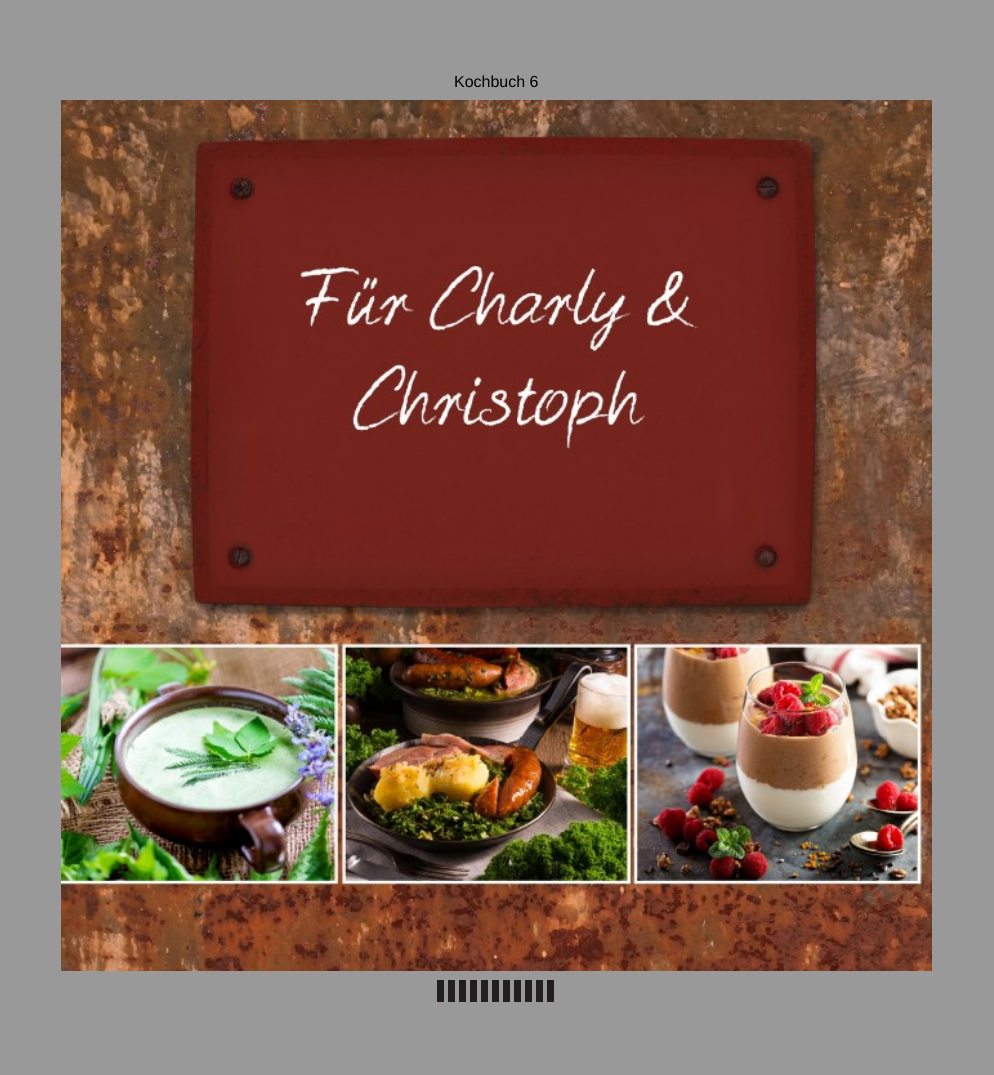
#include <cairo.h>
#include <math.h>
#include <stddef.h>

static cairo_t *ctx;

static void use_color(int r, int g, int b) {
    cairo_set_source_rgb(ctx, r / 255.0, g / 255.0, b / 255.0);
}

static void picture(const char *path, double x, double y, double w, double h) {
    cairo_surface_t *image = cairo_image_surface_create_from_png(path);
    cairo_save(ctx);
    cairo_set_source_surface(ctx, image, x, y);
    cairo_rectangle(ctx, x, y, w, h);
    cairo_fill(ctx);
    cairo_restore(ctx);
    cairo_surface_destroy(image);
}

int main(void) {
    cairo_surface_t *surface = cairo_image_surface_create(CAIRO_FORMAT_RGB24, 994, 1075);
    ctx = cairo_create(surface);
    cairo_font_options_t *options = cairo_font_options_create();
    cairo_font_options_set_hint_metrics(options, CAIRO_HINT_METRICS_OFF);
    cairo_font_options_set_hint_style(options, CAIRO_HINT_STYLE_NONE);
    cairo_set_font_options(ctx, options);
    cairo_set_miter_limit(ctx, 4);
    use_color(153, 153, 153);
    cairo_paint(ctx);
    cairo_select_font_face(ctx, "Liberation Sans", CAIRO_FONT_SLANT_NORMAL, CAIRO_FONT_WEIGHT_NORMAL);
    cairo_set_font_size(ctx, 16);
    use_color(0, 0, 0);
    cairo_move_to(ctx, 454, 87);
    cairo_show_text(ctx, "Kochbuch 6");
    picture("img1.png", 61, 100, 871, 871);
    picture("img2.png", 437, 980, 117, 22);
    cairo_surface_write_to_png(surface, "result.png");
    cairo_font_options_destroy(options);
    cairo_destroy(ctx);
    cairo_surface_destroy(surface);
    return 0;
}
